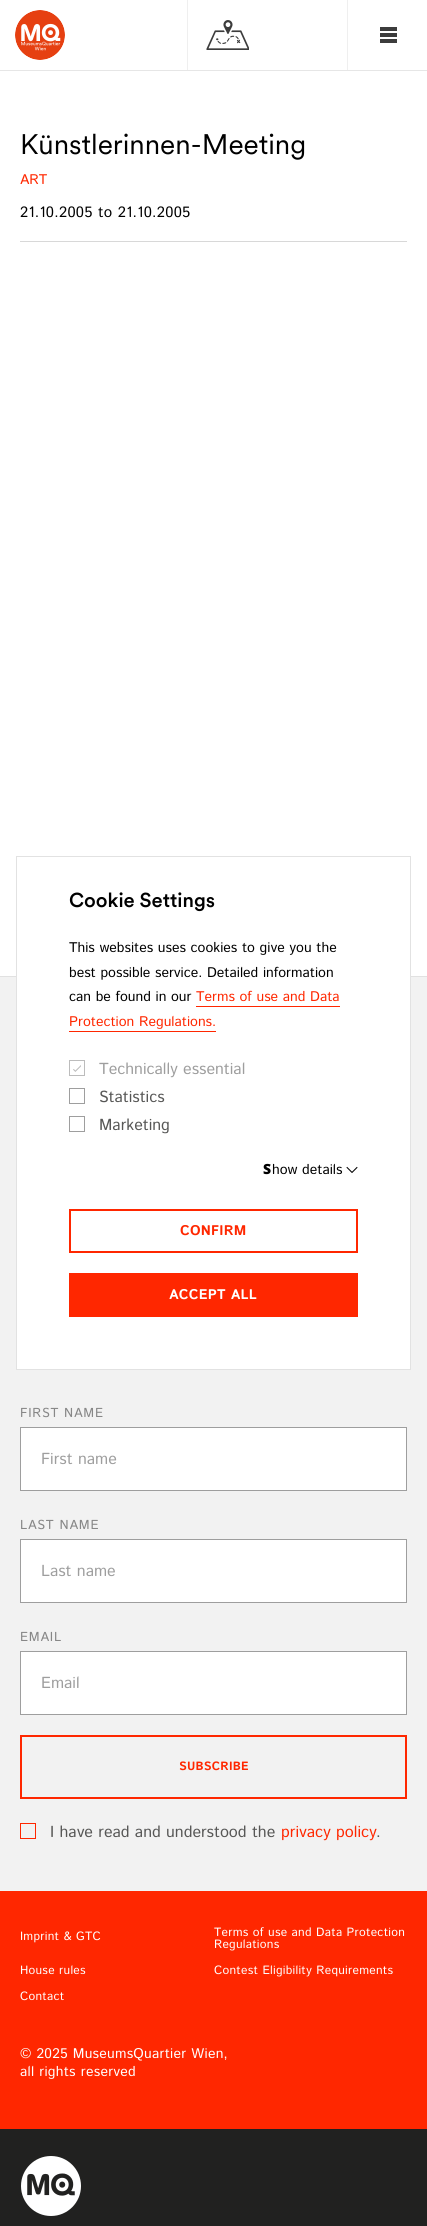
#include <cairo.h>
#include <math.h>
#include <stddef.h>

static cairo_t *ctx;

static void use_color(int r, int g, int b) {
    cairo_set_source_rgb(ctx, r / 255.0, g / 255.0, b / 255.0);
}

static void spaced_text(double x, double y, const char *s, double letter, double word) {
    cairo_move_to(ctx, x, y);
    while (*s) {
        char ch[5] = {0};
        int n = 0;
        do ch[n++] = *s++; while ((*s & 0xC0) == 0x80);
        cairo_show_text(ctx, ch);
        cairo_rel_move_to(ctx, letter + word * (*ch == ' '), 0);
    }
}

static void picture(const char *path, double x, double y, double w, double h) {
    cairo_surface_t *image = cairo_image_surface_create_from_png(path);
    cairo_save(ctx);
    cairo_set_source_surface(ctx, image, x, y);
    cairo_rectangle(ctx, x, y, w, h);
    cairo_fill(ctx);
    cairo_restore(ctx);
    cairo_surface_destroy(image);
}

int main(void) {
    cairo_surface_t *surface = cairo_image_surface_create(CAIRO_FORMAT_RGB24, 427, 2226);
    ctx = cairo_create(surface);
    cairo_font_options_t *options = cairo_font_options_create();
    cairo_font_options_set_hint_metrics(options, CAIRO_HINT_METRICS_OFF);
    cairo_font_options_set_hint_style(options, CAIRO_HINT_STYLE_NONE);
    cairo_set_font_options(ctx, options);
    cairo_set_miter_limit(ctx, 4);
    use_color(255, 255, 255);
    cairo_paint(ctx);
    use_color(230, 230, 230);
    cairo_rectangle(ctx, 0, 70, 427, 1);
    cairo_fill(ctx);
    use_color(239, 239, 239);
    cairo_rectangle(ctx, 347, 0, 1, 70);
    cairo_fill(ctx);
    use_color(60, 60, 60);
    cairo_rectangle(ctx, 380, 33, 17, 4);
    cairo_fill(ctx);
    cairo_rectangle(ctx, 380, 27, 17, 4);
    cairo_fill(ctx);
    cairo_rectangle(ctx, 380, 39, 17, 4);
    cairo_fill(ctx);
    picture("img1.png", 15, 10, 50, 50);
    use_color(239, 239, 239);
    cairo_rectangle(ctx, 187, 0, 1, 70);
    cairo_fill(ctx);
    picture("img2.png", 206, 20, 43, 30);
    cairo_select_font_face(ctx, "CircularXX", CAIRO_FONT_SLANT_NORMAL, CAIRO_FONT_WEIGHT_NORMAL);
    cairo_set_font_size(ctx, 28);
    use_color(0, 0, 0);
    cairo_move_to(ctx, 20, 154);
    cairo_show_text(ctx, "Künstlerinnen-Meeting");
    cairo_select_font_face(ctx, "Istok Web", CAIRO_FONT_SLANT_NORMAL, CAIRO_FONT_WEIGHT_NORMAL);
    cairo_set_font_size(ctx, 14);
    use_color(255, 39, 0);
    cairo_move_to(ctx, 20, 184);
    cairo_show_text(ctx, "ART");
    cairo_set_font_size(ctx, 15);
    use_color(0, 0, 0);
    spaced_text(20, 217, "21.10.2005 to 21.10.2005", 0.3, 0);
    use_color(216, 216, 216);
    cairo_rectangle(ctx, 20, 241, 387, 1);
    cairo_fill(ctx);
    use_color(242, 242, 242);
    cairo_rectangle(ctx, 0, 977, 427, 914);
    cairo_fill(ctx);
    use_color(225, 225, 225);
    cairo_rectangle(ctx, 0, 976, 427, 1);
    cairo_fill(ctx);
    use_color(255, 255, 255);
    cairo_rectangle(ctx, 17, 976, 393, 393);
    cairo_fill(ctx);
    cairo_rectangle(ctx, 16.5, 856.5, 394, 513);
    use_color(226, 226, 226);
    cairo_set_line_width(ctx, 1);
    cairo_stroke(ctx);
    cairo_select_font_face(ctx, "CircularXX Medium", CAIRO_FONT_SLANT_NORMAL, CAIRO_FONT_WEIGHT_NORMAL);
    cairo_set_font_size(ctx, 20);
    use_color(0, 0, 0);
    cairo_move_to(ctx, 69, 907);
    cairo_show_text(ctx, "Cookie Settings");
    cairo_select_font_face(ctx, "Istok Web", CAIRO_FONT_SLANT_NORMAL, CAIRO_FONT_WEIGHT_NORMAL);
    cairo_set_font_size(ctx, 14);
    cairo_move_to(ctx, 69, 952);
    cairo_show_text(ctx, "This websites uses cookies to give you the");
    cairo_move_to(ctx, 69, 977);
    cairo_show_text(ctx, "best possible service. Detailed information");
    cairo_move_to(ctx, 69, 1001);
    cairo_show_text(ctx, "can be found in our");
    use_color(255, 39, 0);
    cairo_move_to(ctx, 196, 1001);
    cairo_show_text(ctx, "Terms of use and Data");
    cairo_rectangle(ctx, 196, 1006, 144, 1);
    cairo_fill(ctx);
    cairo_move_to(ctx, 69, 1026);
    cairo_show_text(ctx, "Protection Regulations.");
    cairo_rectangle(ctx, 69, 1031, 147, 1);
    cairo_fill(ctx);
    picture("img3.png", 73, 1065, 8, 7);
    cairo_rectangle(ctx, 69.5, 1060.5, 15, 15);
    use_color(188, 188, 188);
    cairo_stroke(ctx);
    cairo_set_font_size(ctx, 16);
    use_color(158, 158, 158);
    cairo_move_to(ctx, 99, 1074);
    cairo_show_text(ctx, "Technically essential");
    cairo_rectangle(ctx, 69.5, 1088.5, 15, 15);
    cairo_stroke(ctx);
    use_color(87, 87, 86);
    cairo_move_to(ctx, 99, 1102);
    cairo_show_text(ctx, "Statistics");
    cairo_rectangle(ctx, 69.5, 1116.5, 15, 15);
    use_color(158, 158, 158);
    cairo_stroke(ctx);
    use_color(87, 87, 86);
    cairo_move_to(ctx, 99, 1130);
    cairo_show_text(ctx, "Marketing");
    cairo_select_font_face(ctx, "Noto Sans Black", CAIRO_FONT_SLANT_NORMAL, CAIRO_FONT_WEIGHT_NORMAL);
    cairo_set_font_size(ctx, 14);
    use_color(0, 0, 0);
    cairo_move_to(ctx, 263, 1174);
    cairo_show_text(ctx, "S");
    cairo_select_font_face(ctx, "Istok Web", CAIRO_FONT_SLANT_NORMAL, CAIRO_FONT_WEIGHT_NORMAL);
    cairo_move_to(ctx, 272, 1174);
    cairo_show_text(ctx, "how details");
    picture("img4.png", 346, 1166, 12, 7);
    cairo_rectangle(ctx, 70, 1210, 287, 42);
    use_color(255, 39, 0);
    cairo_set_line_width(ctx, 2);
    cairo_stroke(ctx);
    cairo_select_font_face(ctx, "Istok Web", CAIRO_FONT_SLANT_NORMAL, CAIRO_FONT_WEIGHT_BOLD);
    spaced_text(180, 1235, "CONFIRM", 0.25, 0);
    cairo_rectangle(ctx, 69, 1273, 289, 44);
    cairo_fill(ctx);
    use_color(255, 255, 255);
    spaced_text(169, 1299, "ACCEPT ALL", 0.25, 0);
    cairo_select_font_face(ctx, "Istok Web", CAIRO_FONT_SLANT_NORMAL, CAIRO_FONT_WEIGHT_NORMAL);
    cairo_set_font_size(ctx, 13);
    use_color(135, 135, 135);
    spaced_text(20, 1417, "FIRST NAME", 0.75, 0);
    use_color(255, 255, 255);
    cairo_rectangle(ctx, 20.5, 1427.5, 386, 63);
    cairo_fill_preserve(ctx);
    use_color(158, 158, 158);
    cairo_set_line_width(ctx, 1);
    cairo_stroke(ctx);
    cairo_set_font_size(ctx, 16);
    cairo_move_to(ctx, 41, 1464);
    cairo_show_text(ctx, "First name");
    cairo_set_font_size(ctx, 13);
    use_color(135, 135, 135);
    spaced_text(20, 1529, "LAST NAME", 0.75, 0);
    use_color(255, 255, 255);
    cairo_rectangle(ctx, 20.5, 1539.5, 386, 63);
    cairo_fill_preserve(ctx);
    use_color(158, 158, 158);
    cairo_stroke(ctx);
    cairo_set_font_size(ctx, 16);
    cairo_move_to(ctx, 41, 1576);
    cairo_show_text(ctx, "Last name");
    cairo_set_font_size(ctx, 13);
    use_color(135, 135, 135);
    spaced_text(20, 1641, "EMAIL", 0.75, 0);
    use_color(255, 255, 255);
    cairo_rectangle(ctx, 20.5, 1651.5, 386, 63);
    cairo_fill_preserve(ctx);
    use_color(158, 158, 158);
    cairo_stroke(ctx);
    cairo_set_font_size(ctx, 16);
    cairo_move_to(ctx, 41, 1688);
    cairo_show_text(ctx, "Email");
    cairo_rectangle(ctx, 21, 1736, 385, 62);
    use_color(255, 39, 0);
    cairo_set_line_width(ctx, 2);
    cairo_stroke(ctx);
    cairo_select_font_face(ctx, "Istok Web", CAIRO_FONT_SLANT_NORMAL, CAIRO_FONT_WEIGHT_BOLD);
    cairo_set_font_size(ctx, 12);
    spaced_text(179, 1770, "SUBSCRIBE", 0.25, 0);
    cairo_rectangle(ctx, 20.5, 1823.5, 15, 15);
    cairo_set_line_width(ctx, 1);
    cairo_stroke(ctx);
    cairo_select_font_face(ctx, "Istok Web", CAIRO_FONT_SLANT_NORMAL, CAIRO_FONT_WEIGHT_NORMAL);
    cairo_set_font_size(ctx, 16);
    use_color(87, 87, 86);
    cairo_move_to(ctx, 50, 1837);
    cairo_show_text(ctx, "I have read and understood the");
    use_color(255, 39, 0);
    cairo_move_to(ctx, 281, 1837);
    cairo_show_text(ctx, "privacy policy");
    use_color(87, 87, 86);
    cairo_move_to(ctx, 376, 1837);
    cairo_show_text(ctx, ".");
    use_color(33, 33, 32);
    cairo_rectangle(ctx, 0, 2129, 427, 97);
    cairo_fill(ctx);
    use_color(255, 39, 0);
    cairo_rectangle(ctx, 0, 1891, 427, 238);
    cairo_fill(ctx);
    cairo_set_font_size(ctx, 12);
    use_color(255, 255, 255);
    spaced_text(20, 1940, "Imprint & GTC", 0.25, 0);
    spaced_text(214, 1936, "Terms of use and Data Protection", 0.25, 0);
    spaced_text(214, 1948, "Regulations", 0.25, 0);
    spaced_text(20, 1974, "House rules", 0.25, 0);
    spaced_text(214, 1974, "Contest Eligibility Requirements", 0.25, 0);
    spaced_text(20, 2000, "Contact", 0.25, 0);
    cairo_set_font_size(ctx, 14);
    spaced_text(20, 2058, "© 2025 MuseumsQuartier Wien,", 0.25, 0);
    spaced_text(20, 2076, "all rights reserved", 0.25, 0);
    picture("img5.png", 21, 2156, 60, 60);
    cairo_surface_write_to_png(surface, "result.png");
    cairo_font_options_destroy(options);
    cairo_destroy(ctx);
    cairo_surface_destroy(surface);
    return 0;
}
